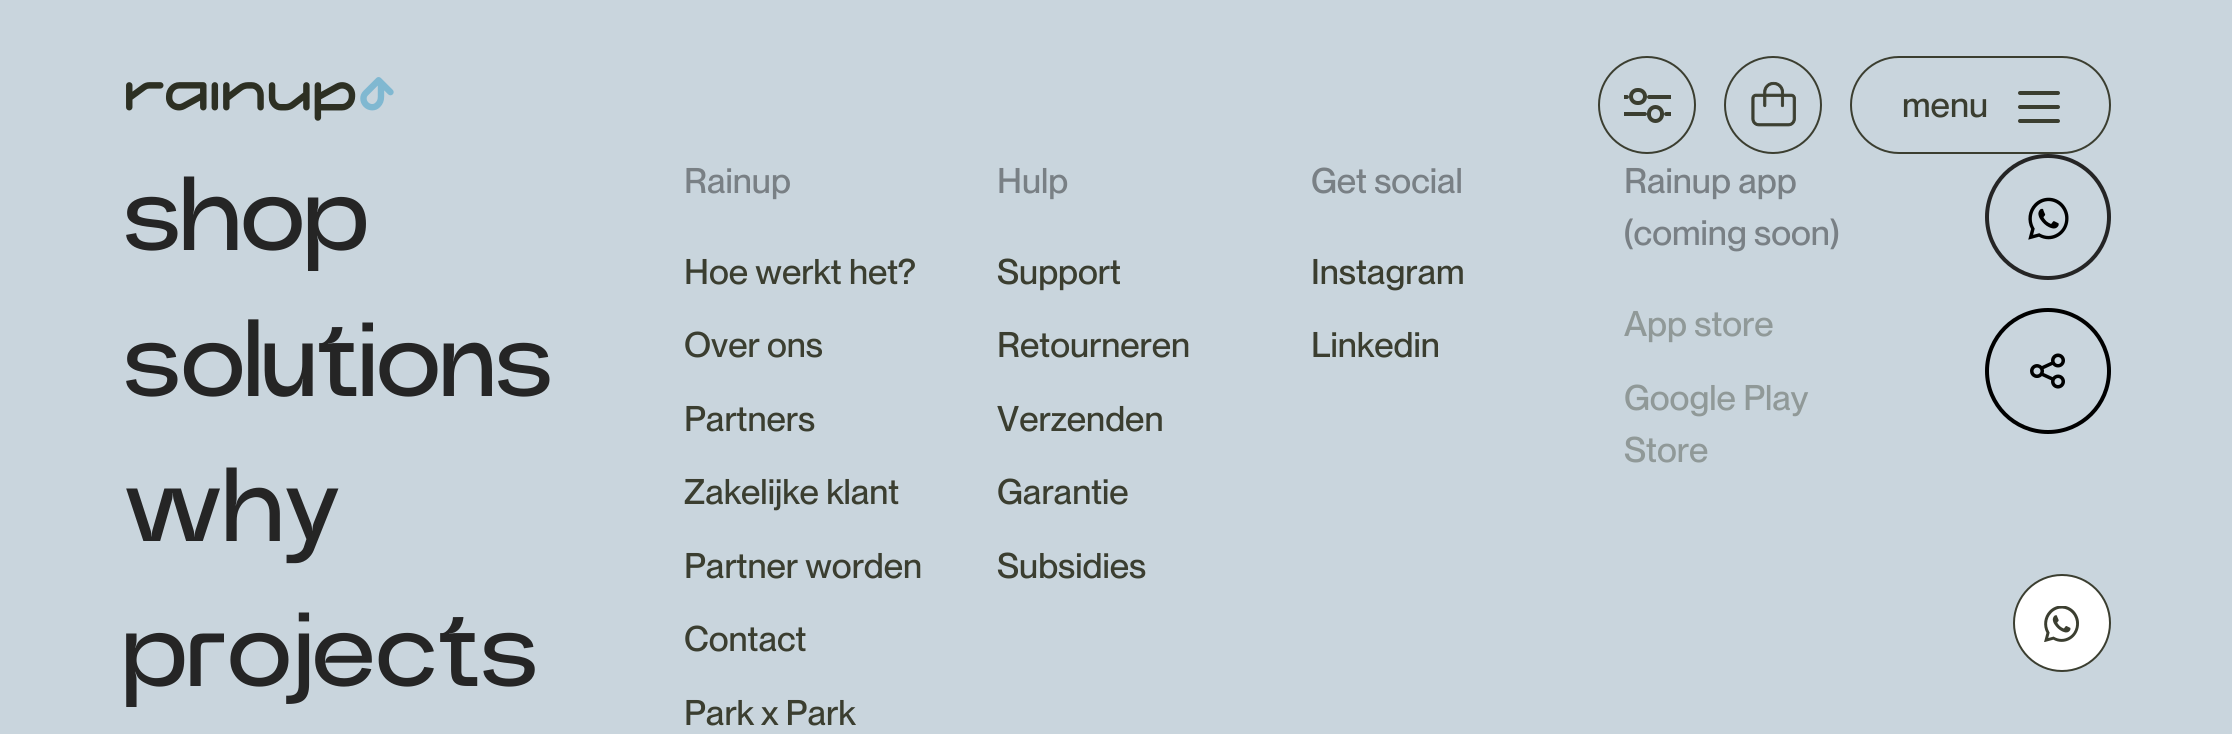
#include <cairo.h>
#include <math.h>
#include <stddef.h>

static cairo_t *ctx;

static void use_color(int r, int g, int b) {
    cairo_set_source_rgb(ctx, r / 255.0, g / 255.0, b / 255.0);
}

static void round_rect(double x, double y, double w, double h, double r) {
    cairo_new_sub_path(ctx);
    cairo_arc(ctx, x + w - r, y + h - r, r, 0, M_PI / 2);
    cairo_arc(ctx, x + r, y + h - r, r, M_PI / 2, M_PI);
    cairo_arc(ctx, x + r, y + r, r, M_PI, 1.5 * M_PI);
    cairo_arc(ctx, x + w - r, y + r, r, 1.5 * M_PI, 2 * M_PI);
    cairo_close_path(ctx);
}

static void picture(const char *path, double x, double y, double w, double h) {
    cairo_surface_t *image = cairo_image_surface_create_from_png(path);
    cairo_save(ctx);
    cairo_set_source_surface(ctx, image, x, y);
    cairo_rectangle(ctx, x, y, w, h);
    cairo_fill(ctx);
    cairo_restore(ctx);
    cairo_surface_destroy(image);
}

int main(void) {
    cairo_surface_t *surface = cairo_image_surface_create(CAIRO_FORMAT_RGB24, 2232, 734);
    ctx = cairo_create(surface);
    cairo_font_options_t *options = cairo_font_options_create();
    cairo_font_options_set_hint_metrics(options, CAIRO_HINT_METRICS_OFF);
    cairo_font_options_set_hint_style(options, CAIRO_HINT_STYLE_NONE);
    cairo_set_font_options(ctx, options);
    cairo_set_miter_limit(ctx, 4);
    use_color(201, 213, 221);
    cairo_paint(ctx);
    picture("img1.png", 126, 77, 268, 44);
    cairo_arc(ctx, 1647, 105, 48, 0, 2 * M_PI);
    use_color(59, 62, 48);
    cairo_stroke(ctx);
    cairo_new_path(ctx);
    cairo_move_to(ctx, 1624, 95);
    cairo_line_to(ctx, 1627, 95);
    cairo_curve_to(ctx, 1628, 95, 1629, 96, 1629, 97);
    cairo_curve_to(ctx, 1629, 98, 1628, 99, 1627, 99);
    cairo_line_to(ctx, 1624, 99);
    cairo_close_path(ctx);
    cairo_fill(ctx);
    round_rect(1631, 90, 14, 13, 6.5);
    cairo_set_line_width(ctx, 4);
    cairo_stroke(ctx);
    cairo_new_path(ctx);
    cairo_move_to(ctx, 1649, 95);
    cairo_line_to(ctx, 1671, 95);
    cairo_line_to(ctx, 1671, 99);
    cairo_line_to(ctx, 1649, 99);
    cairo_curve_to(ctx, 1648, 99, 1647, 98, 1647, 97);
    cairo_curve_to(ctx, 1647, 96, 1648, 95, 1649, 95);
    cairo_close_path(ctx);
    cairo_fill(ctx);
    cairo_new_path(ctx);
    cairo_move_to(ctx, 1624, 112);
    cairo_line_to(ctx, 1645, 112);
    cairo_curve_to(ctx, 1646, 112, 1647, 113, 1647, 114);
    cairo_curve_to(ctx, 1647, 115, 1646, 116, 1645, 116);
    cairo_line_to(ctx, 1624, 116);
    cairo_close_path(ctx);
    cairo_fill(ctx);
    round_rect(1649, 107, 13, 14, 6.5);
    cairo_stroke(ctx);
    cairo_new_path(ctx);
    cairo_move_to(ctx, 1666, 112);
    cairo_line_to(ctx, 1671, 112);
    cairo_line_to(ctx, 1671, 116);
    cairo_line_to(ctx, 1666, 116);
    cairo_curve_to(ctx, 1665, 116, 1664, 115, 1664, 114);
    cairo_curve_to(ctx, 1664, 113, 1665, 112, 1666, 112);
    cairo_close_path(ctx);
    cairo_fill(ctx);
    cairo_arc(ctx, 1773, 105, 48, 0, 2 * M_PI);
    cairo_set_line_width(ctx, 2);
    cairo_stroke(ctx);
    picture("img2.png", 1751, 81, 45, 46);
    round_rect(1851, 57, 259, 96, 48);
    cairo_stroke(ctx);
    cairo_select_font_face(ctx, "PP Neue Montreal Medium", CAIRO_FONT_SLANT_NORMAL, CAIRO_FONT_WEIGHT_NORMAL);
    cairo_set_font_size(ctx, 35);
    cairo_move_to(ctx, 1902, 117);
    cairo_show_text(ctx, "menu");
    round_rect(2018, 91, 42, 4, 2);
    cairo_fill(ctx);
    round_rect(2018, 105, 42, 4, 2);
    cairo_fill(ctx);
    round_rect(2018, 119, 42, 4, 2);
    cairo_fill(ctx);
    cairo_select_font_face(ctx, "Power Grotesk", CAIRO_FONT_SLANT_NORMAL, CAIRO_FONT_WEIGHT_NORMAL);
    cairo_set_font_size(ctx, 105);
    use_color(37, 37, 37);
    cairo_move_to(ctx, 123, 250);
    cairo_show_text(ctx, "shop");
    cairo_move_to(ctx, 123, 396);
    cairo_show_text(ctx, "solutions");
    cairo_move_to(ctx, 123, 541);
    cairo_show_text(ctx, "why");
    cairo_move_to(ctx, 123, 686);
    cairo_show_text(ctx, "projects");
    cairo_select_font_face(ctx, "PP Neue Montreal Medium", CAIRO_FONT_SLANT_NORMAL, CAIRO_FONT_WEIGHT_NORMAL);
    cairo_set_font_size(ctx, 35);
    use_color(121, 128, 133);
    cairo_move_to(ctx, 684, 193);
    cairo_show_text(ctx, "Rainup");
    use_color(59, 62, 48);
    cairo_move_to(ctx, 684, 284);
    cairo_show_text(ctx, "Hoe werkt het?");
    cairo_move_to(ctx, 684, 357);
    cairo_show_text(ctx, "Over ons");
    cairo_move_to(ctx, 684, 431);
    cairo_show_text(ctx, "Partners");
    cairo_move_to(ctx, 684, 504);
    cairo_show_text(ctx, "Zakelijke klant");
    cairo_move_to(ctx, 684, 578);
    cairo_show_text(ctx, "Partner worden");
    cairo_move_to(ctx, 684, 651);
    cairo_show_text(ctx, "Contact");
    cairo_move_to(ctx, 684, 725);
    cairo_show_text(ctx, "Park x Park");
    use_color(121, 128, 133);
    cairo_move_to(ctx, 997, 193);
    cairo_show_text(ctx, "Hulp");
    use_color(59, 62, 48);
    cairo_move_to(ctx, 997, 284);
    cairo_show_text(ctx, "Support");
    cairo_move_to(ctx, 997, 357);
    cairo_show_text(ctx, "Retourneren");
    cairo_move_to(ctx, 997, 431);
    cairo_show_text(ctx, "Verzenden");
    cairo_move_to(ctx, 997, 504);
    cairo_show_text(ctx, "Garantie");
    cairo_move_to(ctx, 997, 578);
    cairo_show_text(ctx, "Subsidies");
    use_color(121, 128, 133);
    cairo_move_to(ctx, 1311, 193);
    cairo_show_text(ctx, "Get social");
    use_color(59, 62, 48);
    cairo_move_to(ctx, 1311, 284);
    cairo_show_text(ctx, "Instagram");
    cairo_move_to(ctx, 1311, 357);
    cairo_show_text(ctx, "Linkedin");
    use_color(121, 128, 133);
    cairo_move_to(ctx, 1624, 193);
    cairo_show_text(ctx, "Rainup app");
    cairo_move_to(ctx, 1624, 245);
    cairo_show_text(ctx, "(coming soon)");
    use_color(144, 153, 152);
    cairo_move_to(ctx, 1624, 336);
    cairo_show_text(ctx, "App store");
    cairo_move_to(ctx, 1624, 410);
    cairo_show_text(ctx, "Google Play");
    cairo_move_to(ctx, 1624, 462);
    cairo_show_text(ctx, "Store");
    cairo_new_path(ctx);
    cairo_arc(ctx, 2048, 217, 61, 0, 2 * M_PI);
    use_color(37, 37, 37);
    cairo_set_line_width(ctx, 4);
    cairo_stroke(ctx);
    picture("img3.png", 2028, 197, 41, 43);
    cairo_arc(ctx, 2048, 371, 61, 0, 2 * M_PI);
    use_color(0, 0, 0);
    cairo_stroke(ctx);
    picture("img4.png", 2030, 353, 35, 36);
    use_color(255, 255, 255);
    cairo_arc(ctx, 2062, 623, 48, 0, 2 * M_PI);
    cairo_fill_preserve(ctx);
    use_color(59, 62, 48);
    cairo_set_line_width(ctx, 2);
    cairo_stroke(ctx);
    picture("img5.png", 2044, 606, 35, 36);
    cairo_surface_write_to_png(surface, "result.png");
    cairo_font_options_destroy(options);
    cairo_destroy(ctx);
    cairo_surface_destroy(surface);
    return 0;
}
